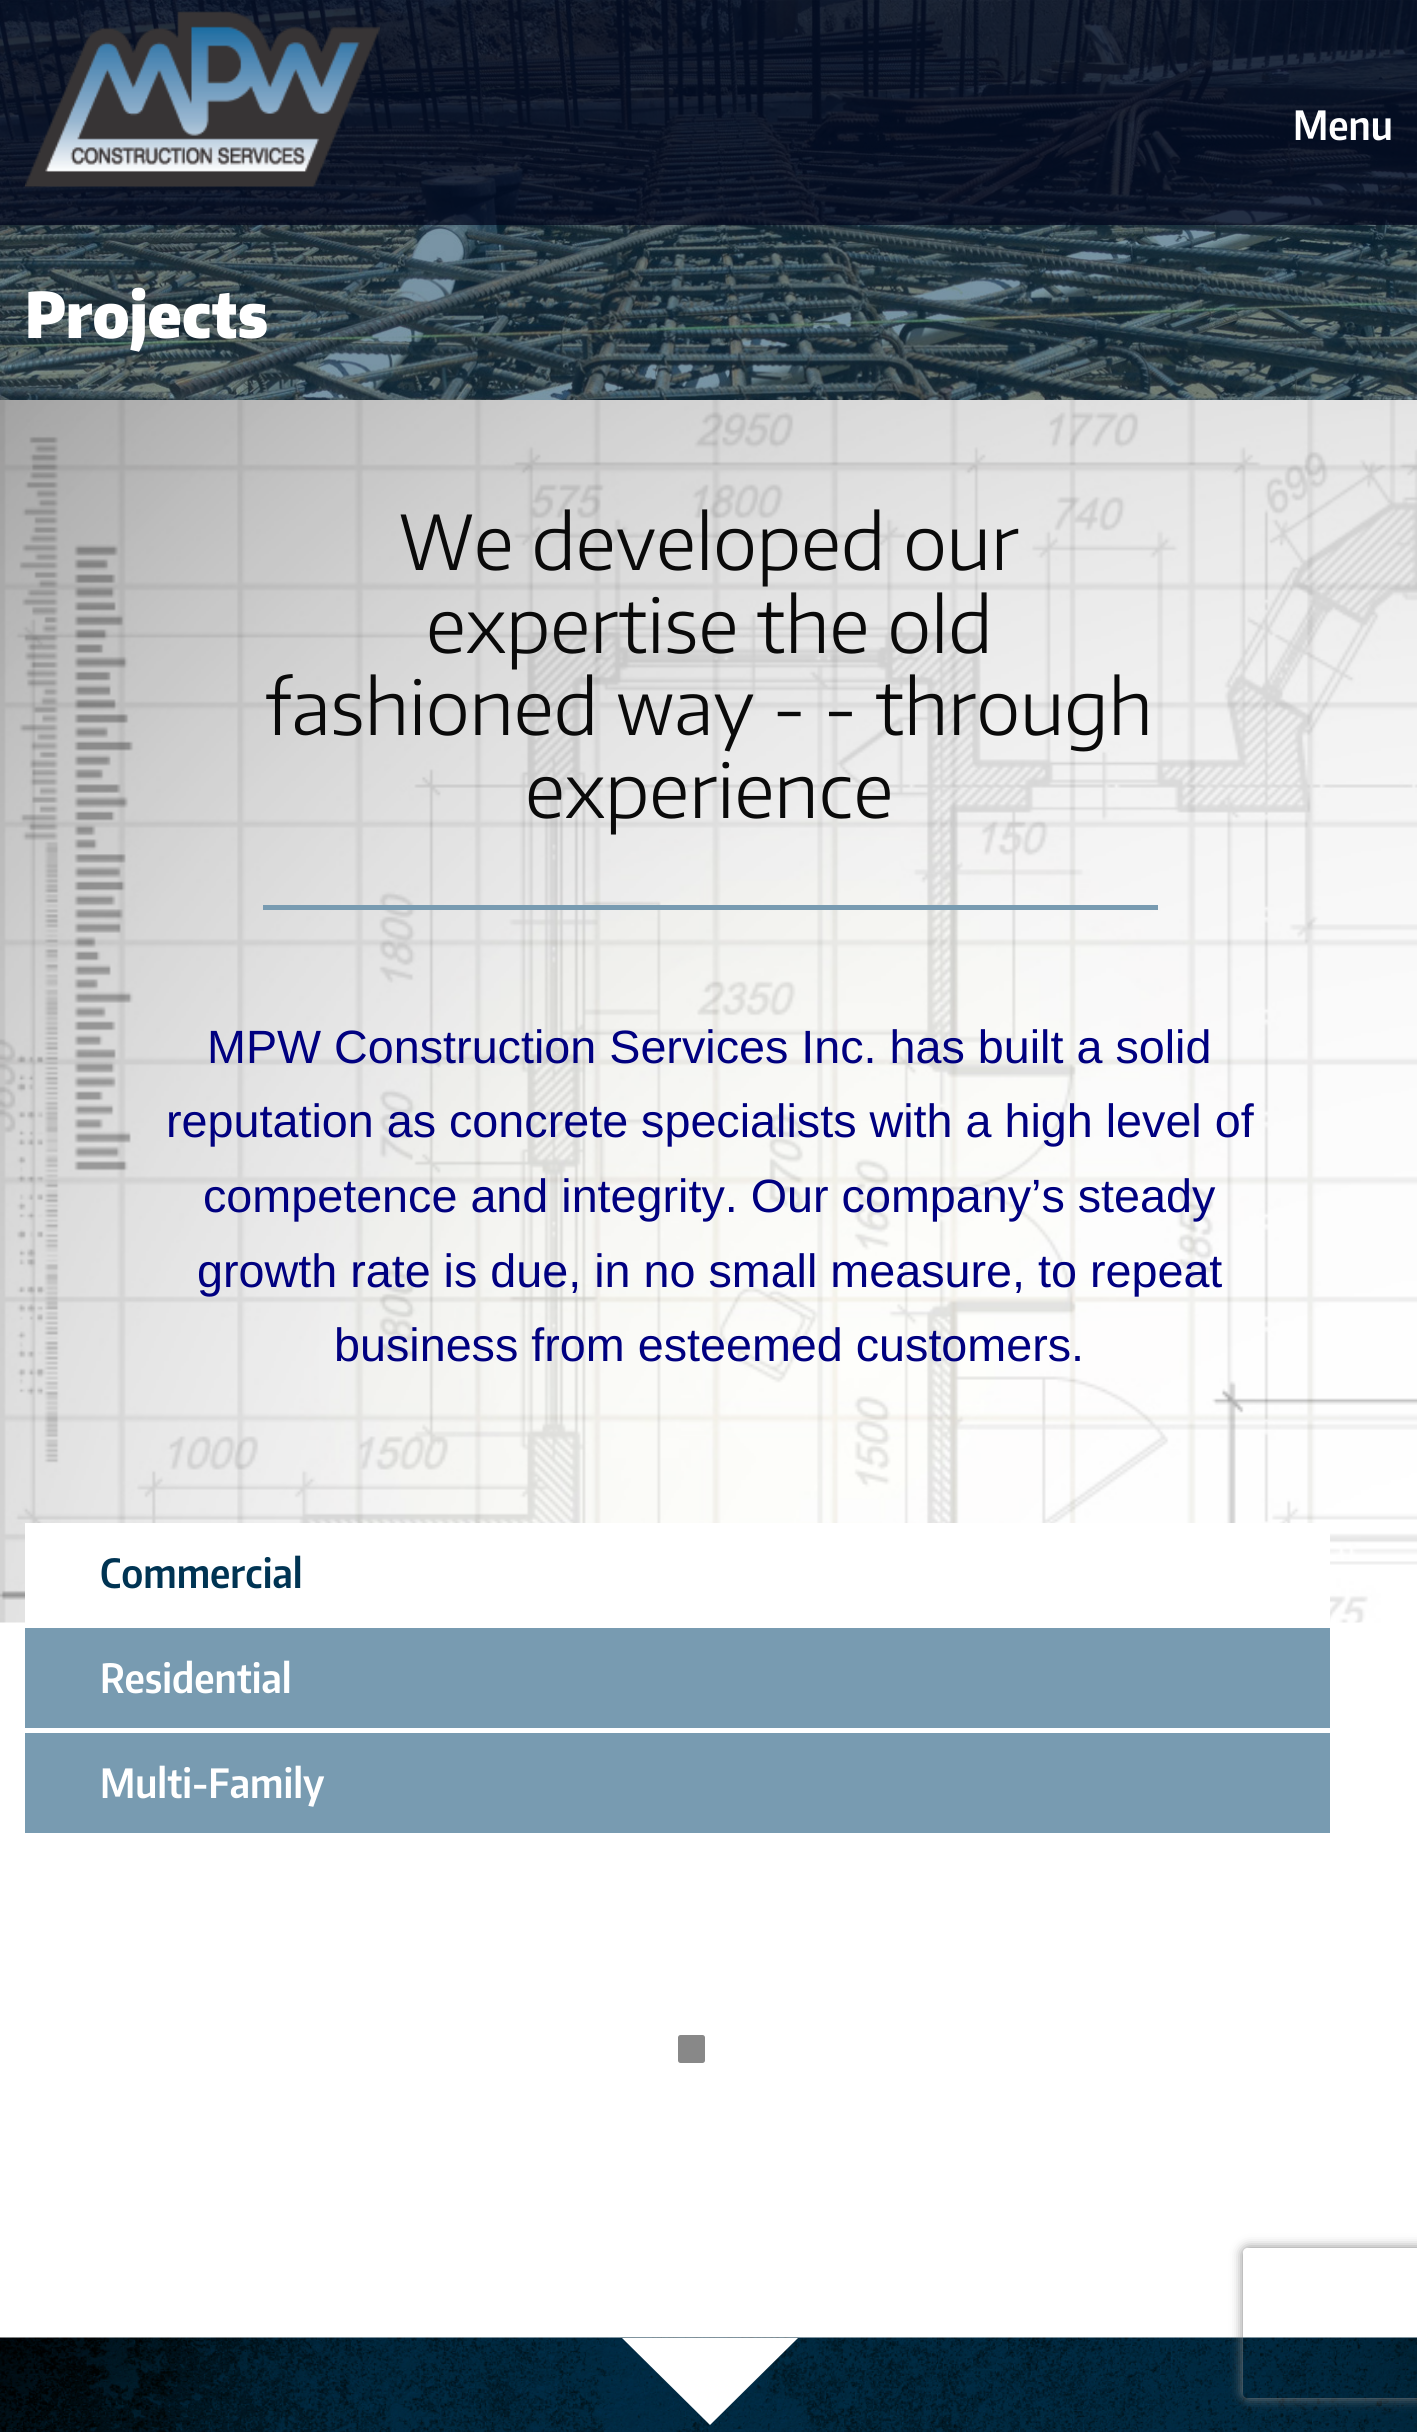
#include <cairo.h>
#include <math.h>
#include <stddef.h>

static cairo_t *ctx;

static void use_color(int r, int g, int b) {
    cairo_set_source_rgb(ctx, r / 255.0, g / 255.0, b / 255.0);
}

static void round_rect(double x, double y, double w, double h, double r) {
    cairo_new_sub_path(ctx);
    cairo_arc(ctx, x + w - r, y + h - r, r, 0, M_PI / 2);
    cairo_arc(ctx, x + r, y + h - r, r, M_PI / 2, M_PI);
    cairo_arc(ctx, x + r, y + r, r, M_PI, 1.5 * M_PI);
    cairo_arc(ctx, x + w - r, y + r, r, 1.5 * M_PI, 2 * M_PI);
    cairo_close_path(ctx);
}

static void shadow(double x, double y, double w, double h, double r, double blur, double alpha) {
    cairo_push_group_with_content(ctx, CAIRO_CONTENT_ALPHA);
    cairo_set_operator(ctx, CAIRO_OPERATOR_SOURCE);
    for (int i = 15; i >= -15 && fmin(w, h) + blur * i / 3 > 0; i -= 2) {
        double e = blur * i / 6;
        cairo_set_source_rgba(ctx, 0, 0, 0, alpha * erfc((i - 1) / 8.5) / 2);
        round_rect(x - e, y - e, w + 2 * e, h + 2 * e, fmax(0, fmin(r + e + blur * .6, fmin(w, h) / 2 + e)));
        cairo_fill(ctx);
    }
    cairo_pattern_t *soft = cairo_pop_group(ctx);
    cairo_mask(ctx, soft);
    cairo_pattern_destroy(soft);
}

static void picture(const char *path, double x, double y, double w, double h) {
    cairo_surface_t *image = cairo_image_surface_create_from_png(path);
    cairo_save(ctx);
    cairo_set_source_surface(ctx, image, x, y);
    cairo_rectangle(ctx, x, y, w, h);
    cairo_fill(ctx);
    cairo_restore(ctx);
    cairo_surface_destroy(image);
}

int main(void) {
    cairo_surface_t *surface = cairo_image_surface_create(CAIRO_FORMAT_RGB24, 1417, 2432);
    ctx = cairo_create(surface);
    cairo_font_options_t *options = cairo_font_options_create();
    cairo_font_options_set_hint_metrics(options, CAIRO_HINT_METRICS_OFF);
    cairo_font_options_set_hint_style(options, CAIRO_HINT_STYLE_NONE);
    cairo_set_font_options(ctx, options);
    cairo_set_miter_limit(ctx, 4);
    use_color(255, 255, 255);
    cairo_paint(ctx);
    picture("img1.png", 0, 0, 1417, 400);
    cairo_set_source_rgba(ctx, 0, 0.02, 0.11, 0.7);
    cairo_rectangle(ctx, 0, 0, 1417, 225);
    cairo_fill(ctx);
    picture("img2.png", 25, 11, 355, 176);
    cairo_select_font_face(ctx, "Encode Sans Condensed SemiBold", CAIRO_FONT_SLANT_NORMAL, CAIRO_FONT_WEIGHT_NORMAL);
    cairo_set_font_size(ctx, 40);
    use_color(255, 255, 255);
    cairo_move_to(ctx, 1293, 140);
    cairo_show_text(ctx, "Menu");
    cairo_select_font_face(ctx, "Encode Sans Condensed Black", CAIRO_FONT_SLANT_NORMAL, CAIRO_FONT_WEIGHT_NORMAL);
    cairo_set_font_size(ctx, 62.5);
    cairo_move_to(ctx, 25, 338);
    cairo_show_text(ctx, "Projects");
    picture("img3.png", 0, 400, 1417, 1223);
    cairo_select_font_face(ctx, "Encode Sans Light", CAIRO_FONT_SLANT_NORMAL, CAIRO_FONT_WEIGHT_NORMAL);
    cairo_set_font_size(ctx, 75);
    use_color(10, 10, 10);
    cairo_move_to(ctx, 399, 570);
    cairo_show_text(ctx, "We developed our");
    cairo_move_to(ctx, 426, 653);
    cairo_show_text(ctx, "expertise the old");
    cairo_move_to(ctx, 265, 735);
    cairo_show_text(ctx, "fashioned way - - through");
    cairo_move_to(ctx, 525, 818);
    cairo_show_text(ctx, "experience");
    use_color(120, 155, 177);
    cairo_rectangle(ctx, 263, 905, 895, 5);
    cairo_fill(ctx);
    cairo_select_font_face(ctx, "Liberation Sans", CAIRO_FONT_SLANT_NORMAL, CAIRO_FONT_WEIGHT_NORMAL);
    cairo_set_font_size(ctx, 46.7);
    use_color(0, 0, 128);
    cairo_move_to(ctx, 207, 1063);
    cairo_show_text(ctx, "MPW Construction Services Inc. has built a solid");
    cairo_move_to(ctx, 166, 1137);
    cairo_show_text(ctx, "reputation as concrete specialists with a high level of");
    cairo_move_to(ctx, 203, 1212);
    cairo_show_text(ctx, "competence and integrity. Our company’s steady");
    cairo_move_to(ctx, 197, 1287);
    cairo_show_text(ctx, "growth rate is due, in no small measure, to repeat");
    cairo_move_to(ctx, 334, 1361);
    cairo_show_text(ctx, "business from esteemed customers.");
    use_color(255, 255, 255);
    cairo_rectangle(ctx, 25, 1523, 1305, 100);
    cairo_fill(ctx);
    cairo_select_font_face(ctx, "Encode Sans Condensed SemiBold", CAIRO_FONT_SLANT_NORMAL, CAIRO_FONT_WEIGHT_NORMAL);
    cairo_set_font_size(ctx, 40);
    use_color(0, 52, 83);
    cairo_move_to(ctx, 100, 1588);
    cairo_show_text(ctx, "Commercial");
    use_color(120, 155, 177);
    cairo_rectangle(ctx, 25, 1628, 1305, 100);
    cairo_fill(ctx);
    use_color(255, 255, 255);
    cairo_move_to(ctx, 100, 1693);
    cairo_show_text(ctx, "Residential");
    use_color(120, 155, 177);
    cairo_rectangle(ctx, 25, 1733, 1305, 100);
    cairo_fill(ctx);
    use_color(255, 255, 255);
    cairo_move_to(ctx, 100, 1798);
    cairo_show_text(ctx, "Multi-Family");
    use_color(136, 136, 136);
    round_rect(678, 2035, 27, 28, 2.5);
    cairo_fill(ctx);
    picture("img4.png", 0, 2337, 1417, 95);
    use_color(255, 255, 255);
    cairo_new_path(ctx);
    cairo_move_to(ctx, 622, 2338);
    cairo_line_to(ctx, 798, 2338);
    cairo_line_to(ctx, 710, 2425);
    cairo_close_path(ctx);
    cairo_fill(ctx);
    cairo_save(ctx);
    cairo_set_fill_rule(ctx, CAIRO_FILL_RULE_EVEN_ODD);
    cairo_new_path(ctx);
    cairo_move_to(ctx, 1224, 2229);
    cairo_line_to(ctx, 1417, 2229);
    cairo_line_to(ctx, 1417, 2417);
    cairo_line_to(ctx, 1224, 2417);
    cairo_close_path(ctx);
    cairo_move_to(ctx, 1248, 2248);
    cairo_line_to(ctx, 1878, 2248);
    cairo_curve_to(ctx, 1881, 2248, 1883, 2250, 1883, 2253);
    cairo_line_to(ctx, 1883, 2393);
    cairo_curve_to(ctx, 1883, 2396, 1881, 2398, 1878, 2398);
    cairo_line_to(ctx, 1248, 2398);
    cairo_curve_to(ctx, 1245, 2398, 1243, 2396, 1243, 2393);
    cairo_line_to(ctx, 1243, 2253);
    cairo_curve_to(ctx, 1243, 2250, 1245, 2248, 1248, 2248);
    cairo_close_path(ctx);
    cairo_clip(ctx);
    use_color(128, 128, 128);
    shadow(1243, 2248, 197, 150, 5, 6, 1);
    cairo_restore(ctx);
    cairo_surface_write_to_png(surface, "result.png");
    cairo_font_options_destroy(options);
    cairo_destroy(ctx);
    cairo_surface_destroy(surface);
    return 0;
}
